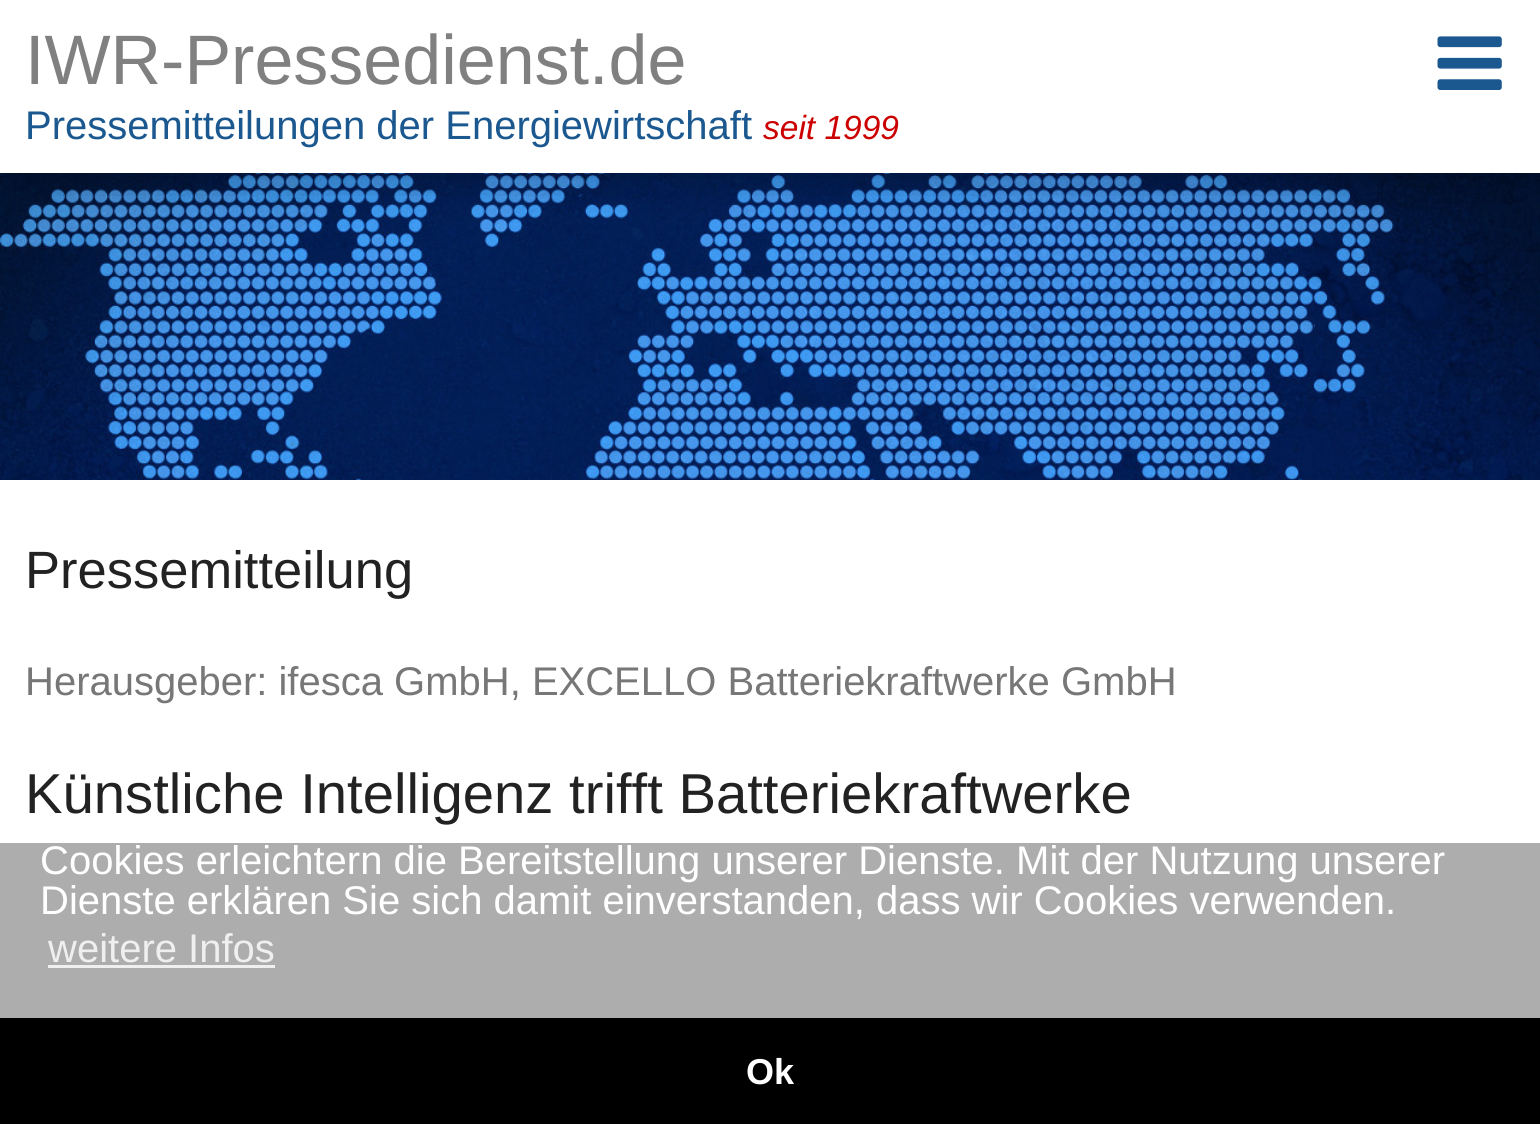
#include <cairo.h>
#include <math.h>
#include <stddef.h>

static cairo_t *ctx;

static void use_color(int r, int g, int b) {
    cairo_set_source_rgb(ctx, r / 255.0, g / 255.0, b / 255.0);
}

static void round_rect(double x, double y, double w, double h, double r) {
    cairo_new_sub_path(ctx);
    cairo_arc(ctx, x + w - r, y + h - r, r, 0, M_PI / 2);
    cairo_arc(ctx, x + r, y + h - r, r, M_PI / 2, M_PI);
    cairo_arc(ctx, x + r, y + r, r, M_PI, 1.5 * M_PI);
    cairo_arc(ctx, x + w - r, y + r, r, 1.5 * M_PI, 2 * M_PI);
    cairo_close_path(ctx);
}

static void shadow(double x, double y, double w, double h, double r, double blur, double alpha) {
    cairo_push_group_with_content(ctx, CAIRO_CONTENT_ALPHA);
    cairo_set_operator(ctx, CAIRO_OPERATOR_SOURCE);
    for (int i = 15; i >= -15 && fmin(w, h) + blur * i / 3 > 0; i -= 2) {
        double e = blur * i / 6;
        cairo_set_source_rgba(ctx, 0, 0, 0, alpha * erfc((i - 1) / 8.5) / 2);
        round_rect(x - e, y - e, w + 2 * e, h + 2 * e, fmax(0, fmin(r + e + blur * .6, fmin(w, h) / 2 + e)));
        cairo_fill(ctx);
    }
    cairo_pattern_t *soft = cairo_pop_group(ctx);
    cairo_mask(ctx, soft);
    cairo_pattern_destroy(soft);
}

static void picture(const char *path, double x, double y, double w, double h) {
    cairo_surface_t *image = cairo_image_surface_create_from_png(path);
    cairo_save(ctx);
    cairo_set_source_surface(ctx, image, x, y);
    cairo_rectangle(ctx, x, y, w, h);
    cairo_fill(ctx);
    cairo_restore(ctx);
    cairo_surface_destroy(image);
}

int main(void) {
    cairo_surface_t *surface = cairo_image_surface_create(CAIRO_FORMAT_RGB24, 1540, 1124);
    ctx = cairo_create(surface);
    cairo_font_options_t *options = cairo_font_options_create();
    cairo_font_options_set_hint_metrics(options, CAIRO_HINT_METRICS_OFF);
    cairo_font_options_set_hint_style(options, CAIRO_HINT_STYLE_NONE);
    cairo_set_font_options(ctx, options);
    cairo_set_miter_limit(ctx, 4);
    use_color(255, 255, 255);
    cairo_paint(ctx);
    picture("img2.png", 0, 173, 1540, 307);
    use_color(0, 0, 0);
    shadow(23, 48, 1495, 127, 0, 25, 0.34);
    use_color(255, 255, 255);
    cairo_rectangle(ctx, 0, 1, 1540, 172);
    cairo_fill(ctx);
    picture("img1.png", 1437, 36, 65, 54);
    cairo_select_font_face(ctx, "Liberation Sans", CAIRO_FONT_SLANT_NORMAL, CAIRO_FONT_WEIGHT_NORMAL);
    cairo_set_font_size(ctx, 70);
    use_color(128, 128, 128);
    cairo_move_to(ctx, 25, 84);
    cairo_show_text(ctx, "IWR-Pressedienst.de");
    cairo_set_font_size(ctx, 40);
    use_color(27, 88, 143);
    cairo_move_to(ctx, 25, 139);
    cairo_show_text(ctx, "Pressemitteilungen der Energiewirtschaft");
    cairo_select_font_face(ctx, "Liberation Sans", CAIRO_FONT_SLANT_ITALIC, CAIRO_FONT_WEIGHT_NORMAL);
    cairo_set_font_size(ctx, 33.5);
    use_color(204, 0, 0);
    cairo_move_to(ctx, 763, 139);
    cairo_show_text(ctx, "seit 1999");
    cairo_select_font_face(ctx, "Liberation Sans", CAIRO_FONT_SLANT_NORMAL, CAIRO_FONT_WEIGHT_NORMAL);
    cairo_set_font_size(ctx, 52.5);
    use_color(34, 34, 34);
    cairo_move_to(ctx, 25, 588);
    cairo_show_text(ctx, "Pressemitteilung");
    cairo_set_font_size(ctx, 40);
    use_color(119, 119, 119);
    cairo_move_to(ctx, 25, 695);
    cairo_show_text(ctx, "Herausgeber: ifesca GmbH, EXCELLO Batteriekraftwerke GmbH");
    cairo_set_font_size(ctx, 56.25);
    use_color(34, 34, 34);
    cairo_move_to(ctx, 25, 813);
    cairo_show_text(ctx, "Künstliche Intelligenz trifft Batteriekraftwerke");
    use_color(173, 173, 173);
    cairo_rectangle(ctx, 0, 843, 1540, 175);
    cairo_fill(ctx);
    cairo_set_font_size(ctx, 40);
    use_color(255, 255, 255);
    cairo_move_to(ctx, 40, 874);
    cairo_show_text(ctx, "Cookies erleichtern die Bereitstellung unserer Dienste. Mit der Nutzung unserer");
    cairo_move_to(ctx, 40, 914);
    cairo_show_text(ctx, "Dienste erklären Sie sich damit einverstanden, dass wir Cookies verwenden.");
    use_color(239, 239, 239);
    cairo_move_to(ctx, 48, 962);
    cairo_show_text(ctx, "weitere Infos");
    cairo_rectangle(ctx, 48, 965, 227, 3);
    cairo_fill(ctx);
    use_color(0, 0, 0);
    cairo_rectangle(ctx, 0, 1018, 1540, 106);
    cairo_fill(ctx);
    cairo_select_font_face(ctx, "Liberation Sans", CAIRO_FONT_SLANT_NORMAL, CAIRO_FONT_WEIGHT_BOLD);
    cairo_set_font_size(ctx, 36);
    use_color(255, 255, 255);
    cairo_move_to(ctx, 746, 1084);
    cairo_show_text(ctx, "Ok");
    cairo_surface_write_to_png(surface, "result.png");
    cairo_font_options_destroy(options);
    cairo_destroy(ctx);
    cairo_surface_destroy(surface);
    return 0;
}
